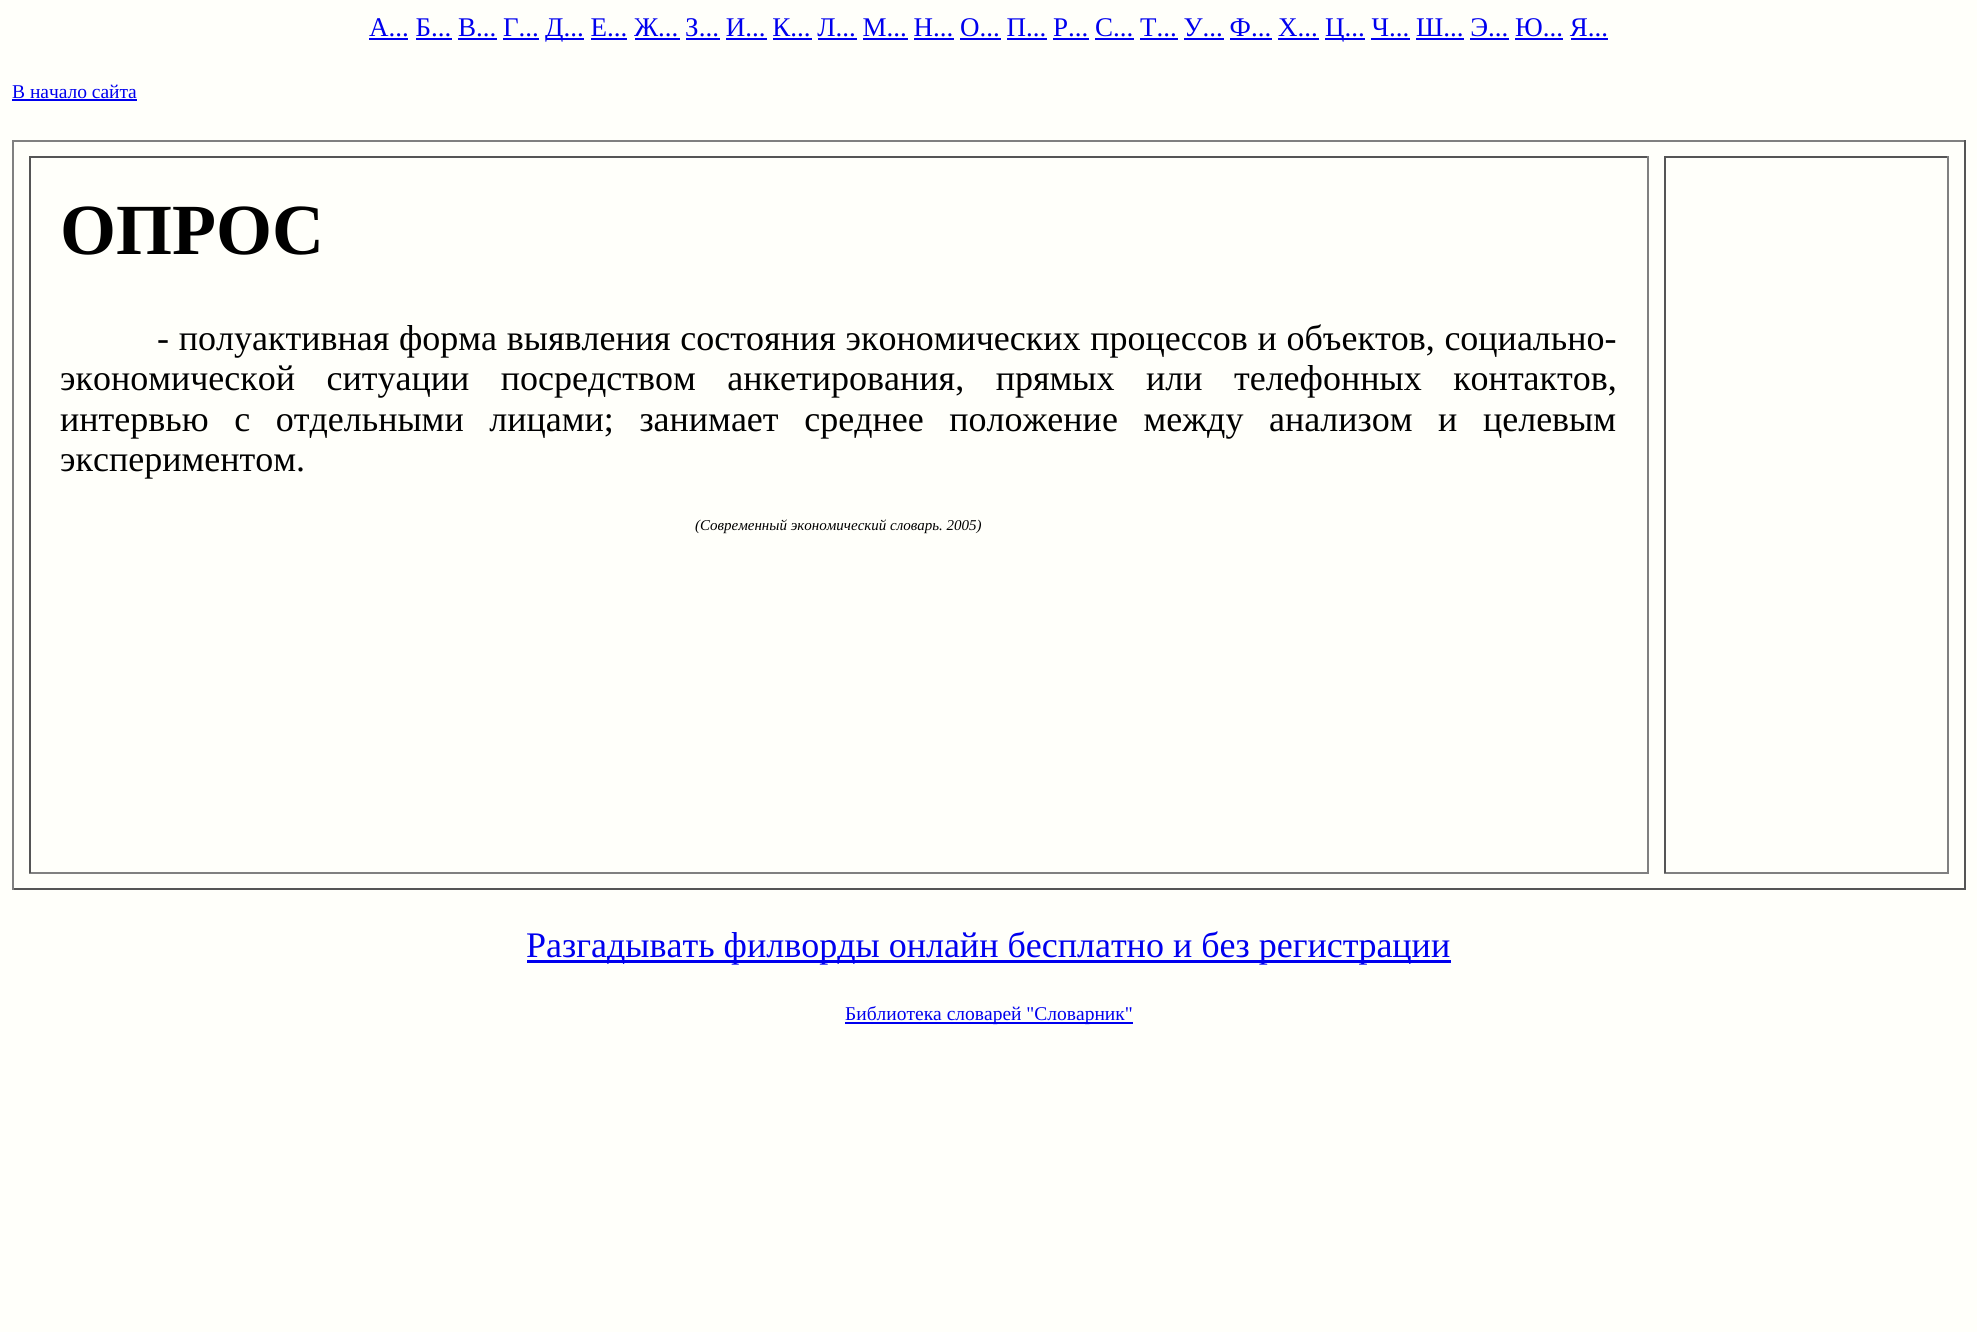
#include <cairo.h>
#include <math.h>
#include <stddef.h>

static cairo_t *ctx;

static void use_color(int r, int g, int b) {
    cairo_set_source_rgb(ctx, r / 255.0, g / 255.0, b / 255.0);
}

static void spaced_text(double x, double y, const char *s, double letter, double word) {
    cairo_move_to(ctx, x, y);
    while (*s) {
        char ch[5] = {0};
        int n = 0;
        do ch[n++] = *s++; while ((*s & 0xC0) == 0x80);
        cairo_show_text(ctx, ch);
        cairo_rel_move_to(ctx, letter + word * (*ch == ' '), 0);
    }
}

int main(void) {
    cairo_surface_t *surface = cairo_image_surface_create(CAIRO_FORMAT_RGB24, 1977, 1332);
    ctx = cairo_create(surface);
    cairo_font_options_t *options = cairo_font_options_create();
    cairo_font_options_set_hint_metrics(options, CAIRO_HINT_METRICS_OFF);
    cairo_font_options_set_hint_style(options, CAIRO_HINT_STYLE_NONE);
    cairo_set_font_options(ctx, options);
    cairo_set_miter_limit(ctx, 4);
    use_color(255, 255, 250);
    cairo_paint(ctx);
    cairo_select_font_face(ctx, "Liberation Serif", CAIRO_FONT_SLANT_NORMAL, CAIRO_FONT_WEIGHT_NORMAL);
    cairo_set_font_size(ctx, 27);
    use_color(0, 0, 238);
    cairo_move_to(ctx, 369, 36);
    cairo_show_text(ctx, "А... Б... В... Г...");
    cairo_rectangle(ctx, 369, 38, 39, 2);
    cairo_fill(ctx);
    cairo_rectangle(ctx, 416, 38, 36, 2);
    cairo_fill(ctx);
    cairo_rectangle(ctx, 458, 38, 39, 2);
    cairo_fill(ctx);
    cairo_rectangle(ctx, 503, 38, 36, 2);
    cairo_fill(ctx);
    cairo_rectangle(ctx, 546, 38, 38, 2);
    cairo_fill(ctx);
    cairo_move_to(ctx, 545, 36);
    cairo_show_text(ctx, "Д... Е... Ж... З... И... К... Л... М... Н... О... П... Р... С... Т... У... Ф... Х...");
    cairo_rectangle(ctx, 591, 38, 36, 2);
    cairo_fill(ctx);
    cairo_rectangle(ctx, 635, 38, 45, 2);
    cairo_fill(ctx);
    cairo_rectangle(ctx, 686, 38, 34, 2);
    cairo_fill(ctx);
    cairo_rectangle(ctx, 726, 38, 41, 2);
    cairo_fill(ctx);
    cairo_rectangle(ctx, 773, 38, 39, 2);
    cairo_fill(ctx);
    cairo_rectangle(ctx, 818, 38, 39, 2);
    cairo_fill(ctx);
    cairo_rectangle(ctx, 863, 38, 45, 2);
    cairo_fill(ctx);
    cairo_rectangle(ctx, 914, 38, 40, 2);
    cairo_fill(ctx);
    cairo_rectangle(ctx, 960, 38, 41, 2);
    cairo_fill(ctx);
    cairo_rectangle(ctx, 1007, 38, 40, 2);
    cairo_fill(ctx);
    cairo_rectangle(ctx, 1053, 38, 36, 2);
    cairo_fill(ctx);
    cairo_rectangle(ctx, 1095, 38, 39, 2);
    cairo_fill(ctx);
    cairo_rectangle(ctx, 1140, 38, 38, 2);
    cairo_fill(ctx);
    cairo_rectangle(ctx, 1184, 38, 40, 2);
    cairo_fill(ctx);
    cairo_rectangle(ctx, 1230, 38, 42, 2);
    cairo_fill(ctx);
    cairo_rectangle(ctx, 1278, 38, 41, 2);
    cairo_fill(ctx);
    cairo_rectangle(ctx, 1325, 38, 40, 2);
    cairo_fill(ctx);
    cairo_move_to(ctx, 1325, 36);
    cairo_show_text(ctx, "Ц... Ч... Ш... Э... Ю... Я...");
    cairo_rectangle(ctx, 1371, 38, 39, 2);
    cairo_fill(ctx);
    cairo_rectangle(ctx, 1416, 38, 48, 2);
    cairo_fill(ctx);
    cairo_rectangle(ctx, 1470, 38, 39, 2);
    cairo_fill(ctx);
    cairo_rectangle(ctx, 1515, 38, 48, 2);
    cairo_fill(ctx);
    cairo_rectangle(ctx, 1571, 38, 37, 2);
    cairo_fill(ctx);
    cairo_set_font_size(ctx, 19.5);
    cairo_move_to(ctx, 12, 98);
    cairo_show_text(ctx, "В начало сайта");
    cairo_rectangle(ctx, 12, 99, 125, 2);
    cairo_fill(ctx);
    use_color(128, 128, 128);
    cairo_rectangle(ctx, 12, 140, 1953, 2);
    cairo_fill(ctx);
    use_color(85, 85, 85);
    cairo_rectangle(ctx, 1964, 140, 2, 750);
    cairo_fill(ctx);
    cairo_rectangle(ctx, 12, 888, 1953, 2);
    cairo_fill(ctx);
    use_color(128, 128, 128);
    cairo_rectangle(ctx, 12, 140, 2, 750);
    cairo_fill(ctx);
    use_color(85, 85, 85);
    cairo_rectangle(ctx, 29, 156, 1620, 2);
    cairo_fill(ctx);
    use_color(128, 128, 128);
    cairo_rectangle(ctx, 1647, 156, 2, 717);
    cairo_fill(ctx);
    cairo_rectangle(ctx, 29, 872, 1620, 2);
    cairo_fill(ctx);
    use_color(85, 85, 85);
    cairo_rectangle(ctx, 29, 156, 2, 717);
    cairo_fill(ctx);
    cairo_select_font_face(ctx, "Liberation Serif", CAIRO_FONT_SLANT_NORMAL, CAIRO_FONT_WEIGHT_BOLD);
    cairo_set_font_size(ctx, 72);
    use_color(0, 0, 0);
    cairo_move_to(ctx, 60, 254);
    cairo_show_text(ctx, "ОПРОС");
    cairo_select_font_face(ctx, "Liberation Serif", CAIRO_FONT_SLANT_NORMAL, CAIRO_FONT_WEIGHT_NORMAL);
    cairo_set_font_size(ctx, 36);
    spaced_text(157, 350, "- полуактивная форма выявления состояния экономических процессов и объектов, социально-", 0, 0.75);
    spaced_text(60, 390, "экономической ситуации посредством анкетирования, прямых или телефонных контактов,", 0, 22.5);
    spaced_text(60, 431, "интервью с отдельными лицами; занимает среднее положение между анализом и целевым", 0, 16.6);
    cairo_move_to(ctx, 60, 471);
    cairo_show_text(ctx, "экспериментом.");
    cairo_select_font_face(ctx, "Liberation Serif", CAIRO_FONT_SLANT_ITALIC, CAIRO_FONT_WEIGHT_NORMAL);
    cairo_set_font_size(ctx, 15);
    cairo_move_to(ctx, 695, 530);
    cairo_show_text(ctx, "(Современный экономический словарь. 2005)");
    use_color(85, 85, 85);
    cairo_rectangle(ctx, 1664, 156, 285, 2);
    cairo_fill(ctx);
    use_color(128, 128, 128);
    cairo_rectangle(ctx, 1947, 156, 2, 717);
    cairo_fill(ctx);
    cairo_rectangle(ctx, 1664, 872, 285, 2);
    cairo_fill(ctx);
    use_color(85, 85, 85);
    cairo_rectangle(ctx, 1664, 156, 2, 717);
    cairo_fill(ctx);
    use_color(0, 0, 238);
    cairo_rectangle(ctx, 527, 960, 924, 3);
    cairo_fill(ctx);
    cairo_select_font_face(ctx, "Liberation Serif", CAIRO_FONT_SLANT_NORMAL, CAIRO_FONT_WEIGHT_NORMAL);
    cairo_set_font_size(ctx, 36);
    cairo_move_to(ctx, 526, 957);
    cairo_show_text(ctx, "Разгадывать филворды онлайн бесплатно и без регистрации");
    cairo_rectangle(ctx, 845, 1022, 288, 2);
    cairo_fill(ctx);
    cairo_set_font_size(ctx, 19.5);
    cairo_move_to(ctx, 845, 1020);
    cairo_show_text(ctx, "Библиотека словарей \"Словарник\"");
    cairo_surface_write_to_png(surface, "result.png");
    cairo_font_options_destroy(options);
    cairo_destroy(ctx);
    cairo_surface_destroy(surface);
    return 0;
}
